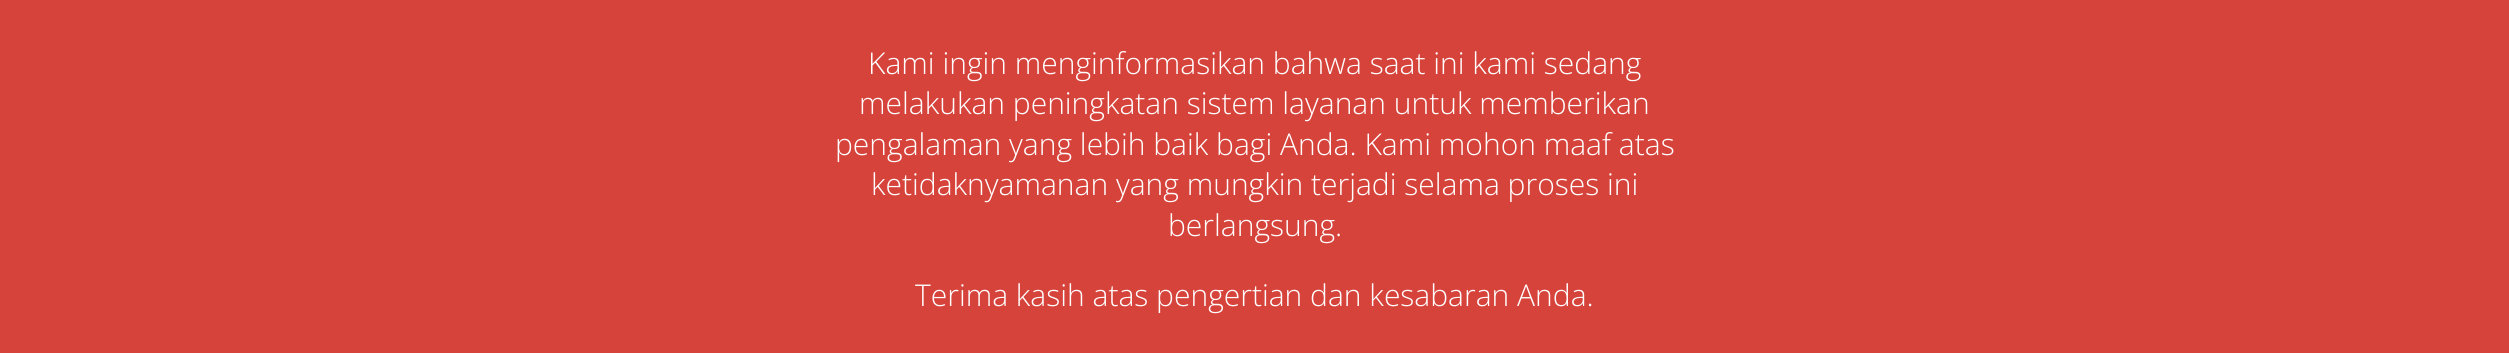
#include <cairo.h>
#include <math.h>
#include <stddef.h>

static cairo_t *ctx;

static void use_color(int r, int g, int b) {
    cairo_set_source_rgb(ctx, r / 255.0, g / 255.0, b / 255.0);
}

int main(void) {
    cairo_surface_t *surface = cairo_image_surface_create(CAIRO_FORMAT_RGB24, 2509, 353);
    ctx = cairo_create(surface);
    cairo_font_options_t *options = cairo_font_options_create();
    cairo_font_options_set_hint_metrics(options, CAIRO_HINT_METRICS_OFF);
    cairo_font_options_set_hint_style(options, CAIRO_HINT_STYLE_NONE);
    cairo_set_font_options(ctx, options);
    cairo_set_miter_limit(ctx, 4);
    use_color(214, 67, 59);
    cairo_paint(ctx);
    cairo_select_font_face(ctx, "Open Sans Light", CAIRO_FONT_SLANT_NORMAL, CAIRO_FONT_WEIGHT_NORMAL);
    cairo_set_font_size(ctx, 30);
    use_color(255, 255, 255);
    cairo_move_to(ctx, 868, 74);
    cairo_show_text(ctx, "Kami ingin menginformasikan bahwa saat ini kami sedang");
    cairo_move_to(ctx, 859, 114);
    cairo_show_text(ctx, "melakukan peningkatan sistem layanan untuk memberikan");
    cairo_move_to(ctx, 835, 155);
    cairo_show_text(ctx, "pengalaman yang lebih baik bagi Anda. Kami mohon maaf atas");
    cairo_move_to(ctx, 871, 195);
    cairo_show_text(ctx, "ketidaknyamanan yang mungkin terjadi selama proses ini");
    cairo_move_to(ctx, 1168, 236);
    cairo_show_text(ctx, "berlangsung.");
    cairo_move_to(ctx, 915, 306);
    cairo_show_text(ctx, "Terima kasih atas pengertian dan kesabaran Anda.");
    cairo_surface_write_to_png(surface, "result.png");
    cairo_font_options_destroy(options);
    cairo_destroy(ctx);
    cairo_surface_destroy(surface);
    return 0;
}
